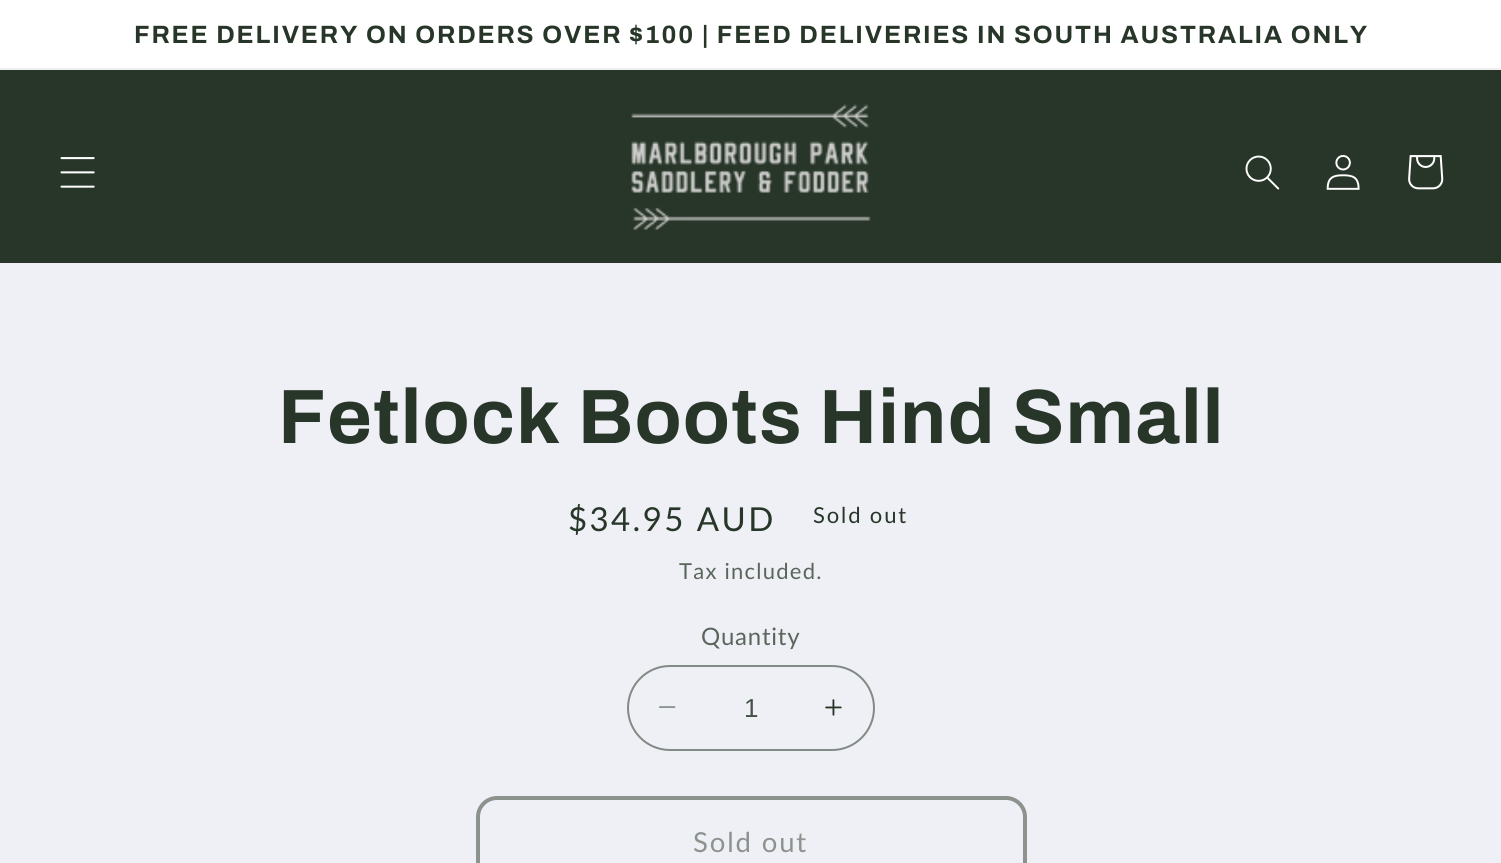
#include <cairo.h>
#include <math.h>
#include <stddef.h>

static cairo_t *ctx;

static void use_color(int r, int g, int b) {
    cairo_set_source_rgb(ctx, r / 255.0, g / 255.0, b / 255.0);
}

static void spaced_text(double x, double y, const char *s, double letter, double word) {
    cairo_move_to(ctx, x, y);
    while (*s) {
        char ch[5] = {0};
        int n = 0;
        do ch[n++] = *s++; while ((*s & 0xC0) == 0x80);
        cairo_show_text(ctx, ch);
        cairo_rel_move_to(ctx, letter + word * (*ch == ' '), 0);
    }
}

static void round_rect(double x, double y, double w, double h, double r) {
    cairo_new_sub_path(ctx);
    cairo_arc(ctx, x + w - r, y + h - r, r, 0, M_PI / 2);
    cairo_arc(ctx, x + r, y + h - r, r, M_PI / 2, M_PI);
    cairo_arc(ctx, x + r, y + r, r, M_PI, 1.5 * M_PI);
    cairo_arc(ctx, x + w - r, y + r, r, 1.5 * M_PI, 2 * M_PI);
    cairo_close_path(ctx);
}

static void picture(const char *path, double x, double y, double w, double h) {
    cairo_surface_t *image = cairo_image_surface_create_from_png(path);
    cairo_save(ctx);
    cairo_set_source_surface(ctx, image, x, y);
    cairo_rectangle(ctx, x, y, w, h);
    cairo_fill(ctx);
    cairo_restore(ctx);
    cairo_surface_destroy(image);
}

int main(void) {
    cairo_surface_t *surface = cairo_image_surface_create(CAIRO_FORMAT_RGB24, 1501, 863);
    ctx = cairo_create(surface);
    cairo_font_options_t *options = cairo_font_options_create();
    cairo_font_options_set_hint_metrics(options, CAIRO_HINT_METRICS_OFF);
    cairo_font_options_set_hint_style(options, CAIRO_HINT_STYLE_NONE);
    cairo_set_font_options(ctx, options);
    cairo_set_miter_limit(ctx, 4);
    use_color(239, 240, 245);
    cairo_paint(ctx);
    use_color(255, 255, 255);
    cairo_rectangle(ctx, 0, 0, 1501, 68);
    cairo_fill(ctx);
    use_color(238, 239, 238);
    cairo_rectangle(ctx, 0, 68, 1501, 2);
    cairo_fill(ctx);
    cairo_select_font_face(ctx, "Archivo", CAIRO_FONT_SLANT_NORMAL, CAIRO_FONT_WEIGHT_BOLD);
    cairo_set_font_size(ctx, 25.05);
    use_color(40, 54, 41);
    spaced_text(134, 43, "FREE DELIVERY ON ORDERS OVER $100 | FEED DELIVERIES IN SOUTH AUSTRALIA ONLY", 1.85, 0);
    cairo_rectangle(ctx, 0, 70, 1501, 193);
    cairo_fill(ctx);
    picture("img1.png", 60, 157, 35, 31);
    picture("img2.png", 631, 104, 240, 127);
    picture("img3.png", 1245, 155, 35, 35);
    picture("img4.png", 1326, 155, 34, 35);
    picture("img5.png", 1408, 155, 36, 35);
    cairo_set_font_size(ctx, 77);
    spaced_text(278, 443, "Fetlock Boots Hind Small", 1.2, 0);
    cairo_select_font_face(ctx, "Lato", CAIRO_FONT_SLANT_NORMAL, CAIRO_FONT_WEIGHT_NORMAL);
    cairo_set_font_size(ctx, 33);
    spaced_text(568, 531, "$34.95 AUD", 2.4, 0);
    cairo_set_font_size(ctx, 22);
    spaced_text(813, 523, "Sold out", 1.85, 0);
    use_color(90, 101, 92);
    spaced_text(679, 579, "Tax included.", 1.25, 0);
    cairo_set_font_size(ctx, 24);
    spaced_text(701, 645, "Quantity", 0.75, 0);
    picture("img6.png", 659, 706, 17, 2);
    picture("img7.png", 825, 699, 17, 17);
    round_rect(628, 666, 246, 84, 42);
    use_color(130, 138, 133);
    cairo_stroke(ctx);
    cairo_select_font_face(ctx, "Liberation Sans", CAIRO_FONT_SLANT_NORMAL, CAIRO_FONT_WEIGHT_NORMAL);
    cairo_set_font_size(ctx, 26);
    use_color(70, 82, 72);
    cairo_move_to(ctx, 744, 717);
    cairo_show_text(ctx, "1");
    round_rect(478, 798, 547, 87, 19);
    use_color(140, 147, 143);
    cairo_set_line_width(ctx, 4);
    cairo_stroke(ctx);
    cairo_select_font_face(ctx, "Lato", CAIRO_FONT_SLANT_NORMAL, CAIRO_FONT_WEIGHT_NORMAL);
    cairo_set_font_size(ctx, 27.5);
    spaced_text(693, 852, "Sold out", 1.85, 0);
    cairo_surface_write_to_png(surface, "result.png");
    cairo_font_options_destroy(options);
    cairo_destroy(ctx);
    cairo_surface_destroy(surface);
    return 0;
}
